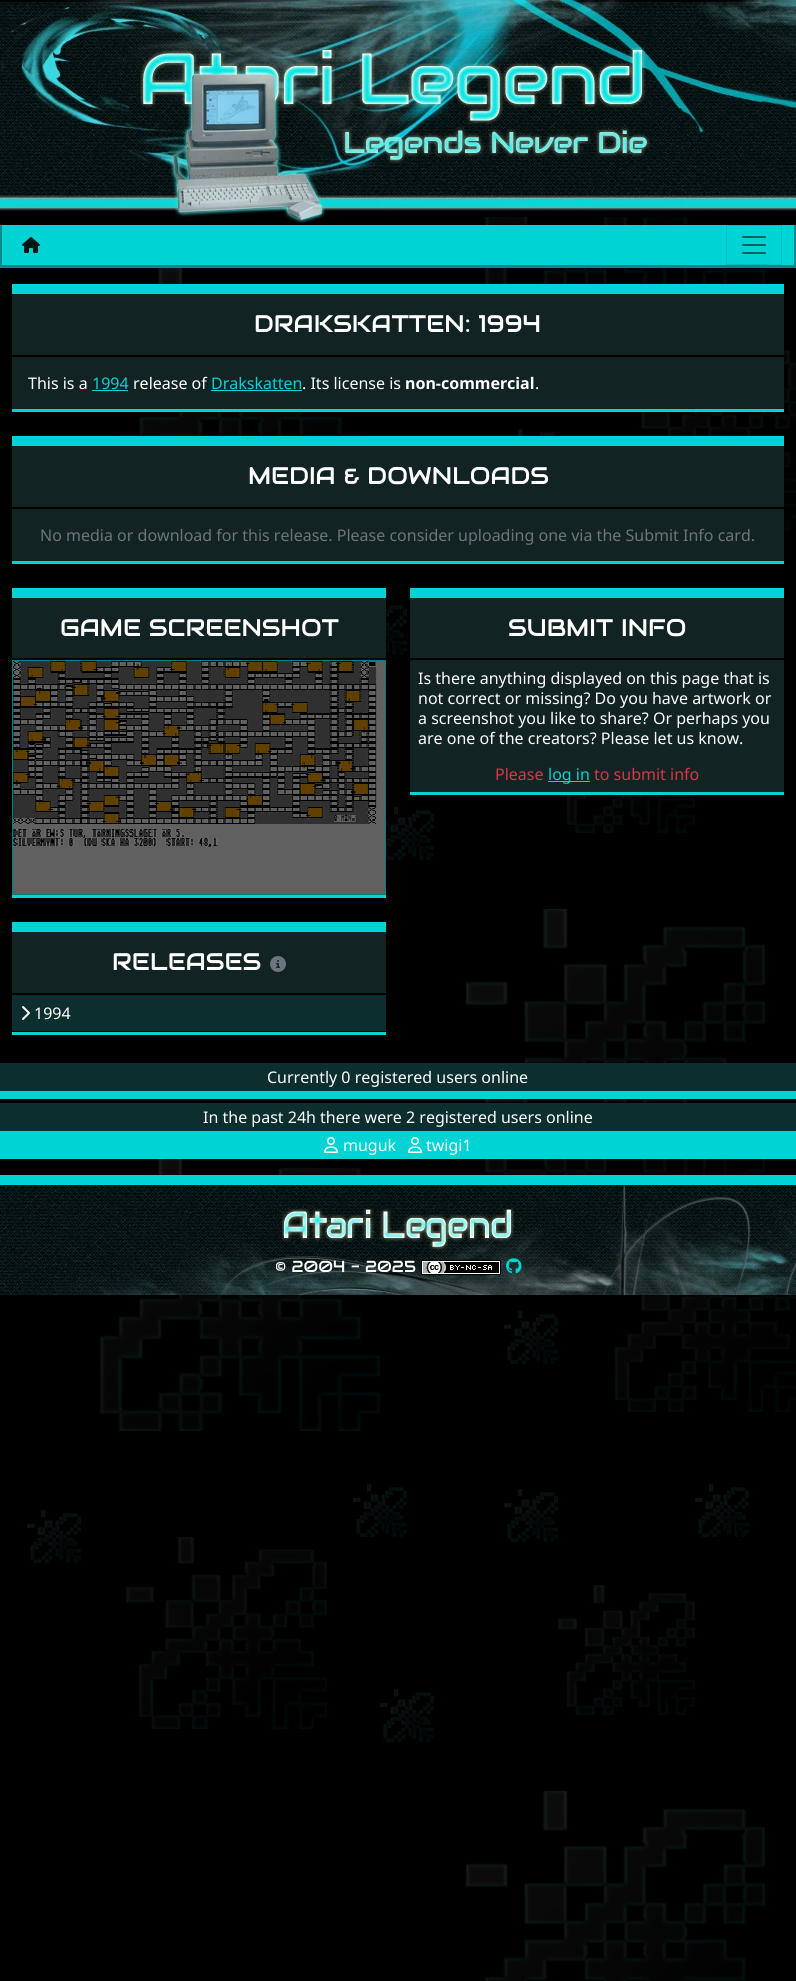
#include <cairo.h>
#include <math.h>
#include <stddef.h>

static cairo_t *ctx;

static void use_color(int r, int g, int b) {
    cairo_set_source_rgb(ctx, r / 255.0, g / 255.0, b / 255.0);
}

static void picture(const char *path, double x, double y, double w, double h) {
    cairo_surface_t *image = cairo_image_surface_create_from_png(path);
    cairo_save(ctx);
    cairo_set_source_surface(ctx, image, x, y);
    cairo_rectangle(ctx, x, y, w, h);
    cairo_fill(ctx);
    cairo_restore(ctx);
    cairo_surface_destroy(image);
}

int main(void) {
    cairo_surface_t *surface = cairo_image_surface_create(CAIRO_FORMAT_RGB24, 796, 1981);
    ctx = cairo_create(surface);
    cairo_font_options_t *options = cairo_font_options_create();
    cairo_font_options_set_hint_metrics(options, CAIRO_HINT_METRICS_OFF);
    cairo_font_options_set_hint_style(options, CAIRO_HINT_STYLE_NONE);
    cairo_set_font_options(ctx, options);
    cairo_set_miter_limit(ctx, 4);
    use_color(0, 0, 0);
    cairo_paint(ctx);
    picture("img1.png", 27, 217, 769, 1764);
    picture("img2.png", 0, 210, 796, 7);
    picture("img3.png", 0, 0, 796, 210);
    picture("img4.png", 140, 46, 510, 177);
    use_color(0, 211, 211);
    cairo_rectangle(ctx, 2, 225, 792, 40);
    cairo_fill(ctx);
    use_color(0, 139, 139);
    cairo_rectangle(ctx, 794, 225, 2, 43);
    cairo_fill(ctx);
    cairo_rectangle(ctx, 0, 265, 796, 3);
    cairo_fill(ctx);
    cairo_rectangle(ctx, 0, 225, 2, 43);
    cairo_fill(ctx);
    picture("img5.png", 22, 237, 18, 16);
    cairo_rectangle(ctx, 726.5, 225.5, 55, 39);
    use_color(0, 190, 190);
    cairo_set_line_width(ctx, 1);
    cairo_stroke(ctx);
    picture("img6.png", 742, 236, 24, 18);
    use_color(18, 35, 35);
    cairo_rectangle(ctx, 12, 294, 772, 115);
    cairo_fill(ctx);
    use_color(0, 211, 211);
    cairo_rectangle(ctx, 12, 284, 772, 10);
    cairo_fill(ctx);
    cairo_rectangle(ctx, 12, 409, 772, 3);
    cairo_fill(ctx);
    use_color(0, 0, 0);
    cairo_rectangle(ctx, 12, 355, 772, 2);
    cairo_fill(ctx);
    cairo_select_font_face(ctx, "Audiowide", CAIRO_FONT_SLANT_NORMAL, CAIRO_FONT_WEIGHT_NORMAL);
    cairo_set_font_size(ctx, 24);
    use_color(255, 255, 255);
    cairo_move_to(ctx, 254, 332);
    cairo_show_text(ctx, "DRAKSKATTEN: 1994");
    cairo_select_font_face(ctx, "Noto Sans", CAIRO_FONT_SLANT_NORMAL, CAIRO_FONT_WEIGHT_NORMAL);
    cairo_set_font_size(ctx, 16);
    cairo_move_to(ctx, 28, 389);
    cairo_show_text(ctx, "This is a");
    use_color(0, 211, 211);
    cairo_move_to(ctx, 92, 389);
    cairo_show_text(ctx, "1994");
    cairo_rectangle(ctx, 92, 390, 36, 1);
    cairo_fill(ctx);
    use_color(255, 255, 255);
    cairo_move_to(ctx, 133, 389);
    cairo_show_text(ctx, "release of");
    use_color(0, 211, 211);
    cairo_move_to(ctx, 211, 389);
    cairo_show_text(ctx, "Drakskatten");
    cairo_rectangle(ctx, 211, 390, 91, 1);
    cairo_fill(ctx);
    use_color(255, 255, 255);
    cairo_move_to(ctx, 302, 389);
    cairo_show_text(ctx, ". Its license is");
    cairo_select_font_face(ctx, "Noto Sans", CAIRO_FONT_SLANT_NORMAL, CAIRO_FONT_WEIGHT_BOLD);
    cairo_move_to(ctx, 405, 389);
    cairo_show_text(ctx, "non-commercial");
    cairo_select_font_face(ctx, "Noto Sans", CAIRO_FONT_SLANT_NORMAL, CAIRO_FONT_WEIGHT_NORMAL);
    cairo_move_to(ctx, 535, 389);
    cairo_show_text(ctx, ".");
    use_color(18, 35, 35);
    cairo_rectangle(ctx, 12, 446, 772, 115);
    cairo_fill(ctx);
    use_color(0, 211, 211);
    cairo_rectangle(ctx, 12, 436, 772, 10);
    cairo_fill(ctx);
    cairo_rectangle(ctx, 12, 561, 772, 3);
    cairo_fill(ctx);
    use_color(0, 0, 0);
    cairo_rectangle(ctx, 12, 507, 772, 2);
    cairo_fill(ctx);
    cairo_select_font_face(ctx, "Audiowide", CAIRO_FONT_SLANT_NORMAL, CAIRO_FONT_WEIGHT_NORMAL);
    cairo_set_font_size(ctx, 24);
    use_color(255, 255, 255);
    cairo_move_to(ctx, 248, 484);
    cairo_show_text(ctx, "MEDIA & DOWNLOADS");
    cairo_select_font_face(ctx, "Noto Sans", CAIRO_FONT_SLANT_NORMAL, CAIRO_FONT_WEIGHT_NORMAL);
    cairo_set_font_size(ctx, 16);
    use_color(108, 117, 125);
    cairo_move_to(ctx, 40, 541);
    cairo_show_text(ctx, "No media or download for this release. Please consider uploading one via the Submit Info card.");
    use_color(18, 35, 35);
    cairo_rectangle(ctx, 12, 598, 374, 60);
    cairo_fill(ctx);
    use_color(0, 211, 211);
    cairo_rectangle(ctx, 12, 588, 374, 10);
    cairo_fill(ctx);
    cairo_rectangle(ctx, 12, 895, 374, 3);
    cairo_fill(ctx);
    use_color(0, 0, 0);
    cairo_rectangle(ctx, 34, 658, 160, 2);
    cairo_fill(ctx);
    cairo_select_font_face(ctx, "Audiowide", CAIRO_FONT_SLANT_NORMAL, CAIRO_FONT_WEIGHT_NORMAL);
    cairo_set_font_size(ctx, 24);
    use_color(255, 255, 255);
    cairo_move_to(ctx, 60, 636);
    cairo_show_text(ctx, "GAME SCREENSHOT");
    cairo_rectangle(ctx, 12.5, 660.5, 373, 234);
    use_color(0, 127, 127);
    cairo_stroke(ctx);
    picture("img7.png", 13, 661, 372, 233);
    use_color(18, 35, 35);
    cairo_rectangle(ctx, 12, 932, 374, 61);
    cairo_fill(ctx);
    use_color(0, 211, 211);
    cairo_rectangle(ctx, 12, 922, 374, 10);
    cairo_fill(ctx);
    cairo_rectangle(ctx, 12, 1032, 374, 3);
    cairo_fill(ctx);
    use_color(255, 255, 255);
    cairo_move_to(ctx, 112, 970);
    cairo_show_text(ctx, "RELEASES");
    picture("img8.png", 270, 956, 16, 16);
    use_color(13, 46, 46);
    cairo_rectangle(ctx, 12, 995, 374, 36);
    cairo_fill(ctx);
    picture("img9.png", 22, 1006, 8, 14);
    cairo_select_font_face(ctx, "Noto Sans", CAIRO_FONT_SLANT_NORMAL, CAIRO_FONT_WEIGHT_NORMAL);
    cairo_set_font_size(ctx, 16);
    use_color(255, 255, 255);
    cairo_move_to(ctx, 34, 1019);
    cairo_show_text(ctx, "1994");
    use_color(18, 35, 35);
    cairo_rectangle(ctx, 410, 598, 374, 194);
    cairo_fill(ctx);
    use_color(0, 211, 211);
    cairo_rectangle(ctx, 410, 588, 374, 10);
    cairo_fill(ctx);
    cairo_rectangle(ctx, 410, 792, 374, 3);
    cairo_fill(ctx);
    use_color(0, 0, 0);
    cairo_rectangle(ctx, 410, 658, 374, 2);
    cairo_fill(ctx);
    cairo_select_font_face(ctx, "Audiowide", CAIRO_FONT_SLANT_NORMAL, CAIRO_FONT_WEIGHT_NORMAL);
    cairo_set_font_size(ctx, 24);
    use_color(255, 255, 255);
    cairo_move_to(ctx, 508, 636);
    cairo_show_text(ctx, "SUBMIT INFO");
    cairo_select_font_face(ctx, "Noto Sans", CAIRO_FONT_SLANT_NORMAL, CAIRO_FONT_WEIGHT_NORMAL);
    cairo_set_font_size(ctx, 16);
    cairo_move_to(ctx, 418, 684);
    cairo_show_text(ctx, "Is there anything displayed on this page that is");
    cairo_move_to(ctx, 418, 704);
    cairo_show_text(ctx, "not correct or missing? Do you have artwork or");
    cairo_move_to(ctx, 418, 724);
    cairo_show_text(ctx, "a screenshot you like to share? Or perhaps you");
    cairo_move_to(ctx, 418, 744);
    cairo_show_text(ctx, "are one of the creators? Please let us know.");
    use_color(220, 53, 69);
    cairo_move_to(ctx, 495, 780);
    cairo_show_text(ctx, "Please");
    use_color(0, 211, 211);
    cairo_rectangle(ctx, 548, 781, 42, 1);
    cairo_fill(ctx);
    cairo_move_to(ctx, 548, 780);
    cairo_show_text(ctx, "log in");
    use_color(220, 53, 69);
    cairo_move_to(ctx, 594, 780);
    cairo_show_text(ctx, "to submit info");
    use_color(13, 46, 46);
    cairo_rectangle(ctx, 0, 1063, 796, 28);
    cairo_fill(ctx);
    use_color(255, 255, 255);
    cairo_move_to(ctx, 267, 1083);
    cairo_show_text(ctx, "Currently 0 registered users online");
    use_color(0, 211, 211);
    cairo_rectangle(ctx, 0, 1091, 796, 8);
    cairo_fill(ctx);
    use_color(13, 46, 46);
    cairo_rectangle(ctx, 0, 1103, 796, 28);
    cairo_fill(ctx);
    use_color(255, 255, 255);
    cairo_move_to(ctx, 203, 1123);
    cairo_show_text(ctx, "In the past 24h there were 2 registered users online");
    use_color(0, 211, 211);
    cairo_rectangle(ctx, 0, 1131, 796, 28);
    cairo_fill(ctx);
    picture("img10.png", 324, 1137, 14, 16);
    use_color(255, 255, 255);
    cairo_move_to(ctx, 343, 1151);
    cairo_show_text(ctx, "muguk");
    picture("img10.png", 408, 1137, 14, 16);
    cairo_move_to(ctx, 426, 1151);
    cairo_show_text(ctx, "twigi1");
    picture("img11.png", 0, 1185, 796, 110);
    use_color(0, 211, 211);
    cairo_rectangle(ctx, 0, 1175, 796, 10);
    cairo_fill(ctx);
    picture("img12.png", 282, 1209, 232, 41);
    cairo_select_font_face(ctx, "Audiowide", CAIRO_FONT_SLANT_NORMAL, CAIRO_FONT_WEIGHT_NORMAL);
    use_color(255, 255, 255);
    cairo_move_to(ctx, 275, 1272);
    cairo_show_text(ctx, "© 2004 - 2025");
    picture("img13.png", 421, 1260, 80, 15);
    picture("img14.png", 506, 1258, 16, 16);
    cairo_surface_write_to_png(surface, "result.png");
    cairo_font_options_destroy(options);
    cairo_destroy(ctx);
    cairo_surface_destroy(surface);
    return 0;
}
